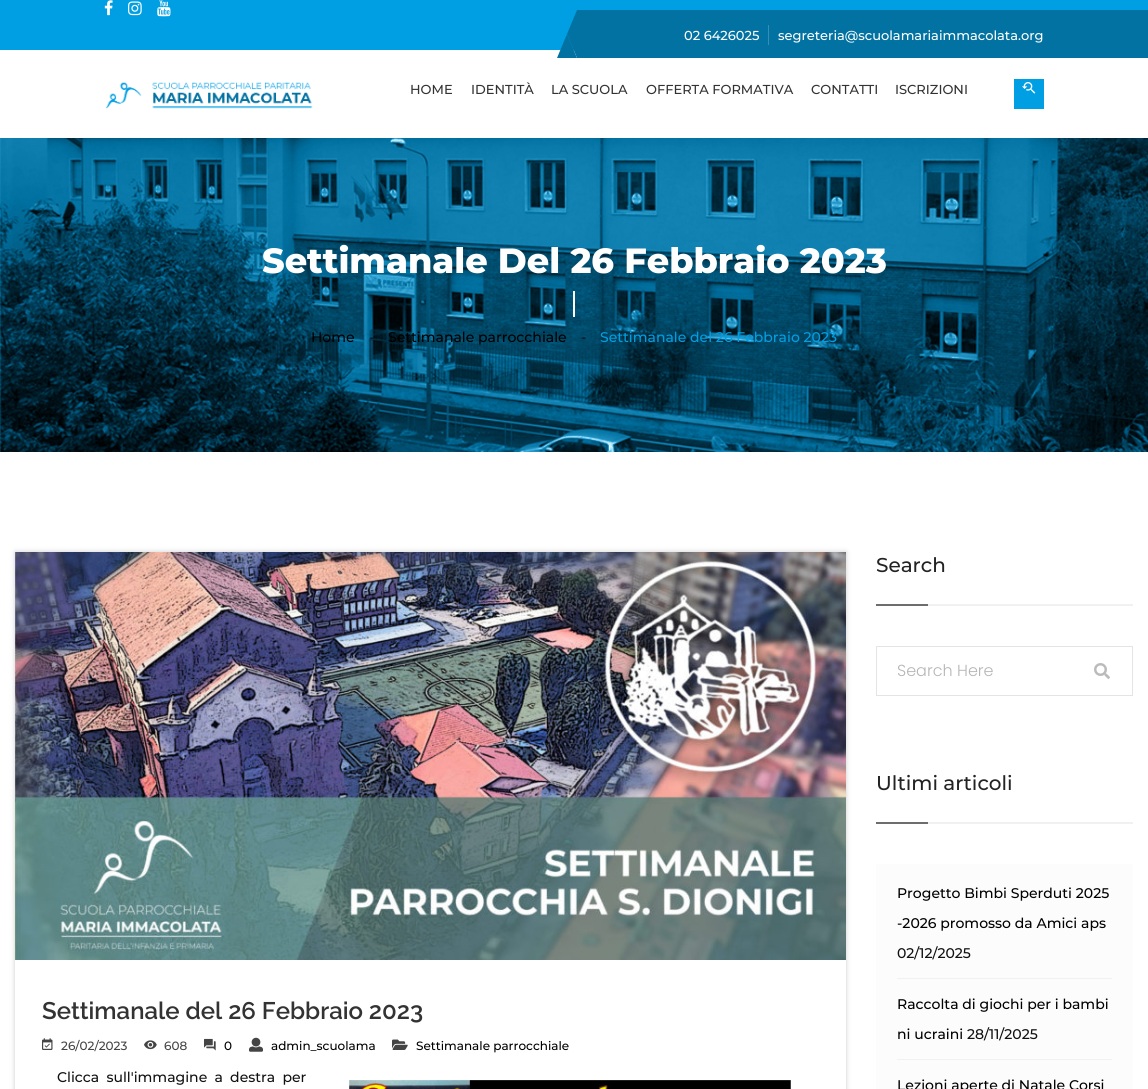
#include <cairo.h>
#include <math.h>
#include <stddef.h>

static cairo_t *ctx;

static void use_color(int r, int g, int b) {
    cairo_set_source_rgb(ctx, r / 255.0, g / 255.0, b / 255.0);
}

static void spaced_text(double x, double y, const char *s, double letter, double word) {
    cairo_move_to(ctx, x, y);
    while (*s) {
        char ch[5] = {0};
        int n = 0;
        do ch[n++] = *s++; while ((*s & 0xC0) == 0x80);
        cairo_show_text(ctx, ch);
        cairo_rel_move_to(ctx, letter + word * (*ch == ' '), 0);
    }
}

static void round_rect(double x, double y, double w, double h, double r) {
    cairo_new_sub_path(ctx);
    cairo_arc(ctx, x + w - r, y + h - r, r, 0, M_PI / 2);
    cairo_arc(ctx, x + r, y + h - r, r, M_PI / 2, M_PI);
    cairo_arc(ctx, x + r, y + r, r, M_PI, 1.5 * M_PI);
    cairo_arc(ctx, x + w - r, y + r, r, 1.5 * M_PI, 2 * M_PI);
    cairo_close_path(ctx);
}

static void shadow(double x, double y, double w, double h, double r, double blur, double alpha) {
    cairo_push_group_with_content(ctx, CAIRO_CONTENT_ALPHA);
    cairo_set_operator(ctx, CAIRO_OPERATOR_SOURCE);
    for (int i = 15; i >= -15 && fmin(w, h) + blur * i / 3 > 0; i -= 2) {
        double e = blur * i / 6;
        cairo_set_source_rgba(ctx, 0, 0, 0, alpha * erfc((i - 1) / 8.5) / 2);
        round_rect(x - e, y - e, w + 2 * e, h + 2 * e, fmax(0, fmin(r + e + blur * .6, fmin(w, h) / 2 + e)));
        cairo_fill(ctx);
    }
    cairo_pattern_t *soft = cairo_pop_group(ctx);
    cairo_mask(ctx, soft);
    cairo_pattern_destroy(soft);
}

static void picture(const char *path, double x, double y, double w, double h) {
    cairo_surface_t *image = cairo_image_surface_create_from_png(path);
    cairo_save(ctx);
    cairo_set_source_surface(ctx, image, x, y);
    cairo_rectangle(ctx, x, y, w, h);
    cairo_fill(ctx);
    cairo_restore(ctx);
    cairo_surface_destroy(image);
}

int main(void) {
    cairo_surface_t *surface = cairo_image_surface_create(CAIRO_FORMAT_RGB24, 1148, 1089);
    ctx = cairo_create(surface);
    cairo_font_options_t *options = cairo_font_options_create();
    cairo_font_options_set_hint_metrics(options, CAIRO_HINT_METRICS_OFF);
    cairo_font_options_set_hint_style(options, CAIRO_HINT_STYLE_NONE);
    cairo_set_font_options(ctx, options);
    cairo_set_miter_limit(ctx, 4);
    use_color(255, 255, 255);
    cairo_paint(ctx);
    use_color(0, 159, 227);
    cairo_rectangle(ctx, 0, 0, 1148, 50);
    cairo_fill(ctx);
    use_color(2, 114, 162);
    cairo_new_path(ctx);
    cairo_move_to(ctx, 577, 10);
    cairo_line_to(ctx, 577, 58);
    cairo_line_to(ctx, 567, 34);
    cairo_close_path(ctx);
    cairo_fill(ctx);
    cairo_new_path(ctx);
    cairo_move_to(ctx, 577, 58);
    cairo_line_to(ctx, 557, 58);
    cairo_line_to(ctx, 567, 34);
    cairo_close_path(ctx);
    cairo_fill(ctx);
    cairo_rectangle(ctx, 577, 10, 571, 48);
    cairo_fill(ctx);
    picture("img1.png", 104, 0, 9, 16);
    picture("img2.png", 128, 1, 14, 15);
    picture("img3.png", 157, 0, 14, 17);
    cairo_select_font_face(ctx, "Montserrat Medium", CAIRO_FONT_SLANT_NORMAL, CAIRO_FONT_WEIGHT_NORMAL);
    cairo_set_font_size(ctx, 13);
    use_color(255, 255, 255);
    cairo_move_to(ctx, 684, 40);
    cairo_show_text(ctx, "02 6426025");
    use_color(53, 142, 181);
    cairo_rectangle(ctx, 768, 25, 1, 20);
    cairo_fill(ctx);
    use_color(255, 255, 255);
    cairo_move_to(ctx, 778, 40);
    cairo_show_text(ctx, "segreteria@scuolamariaimmacolata.org");
    picture("img4.png", 105, 82, 208, 27);
    use_color(51, 51, 51);
    cairo_move_to(ctx, 410, 94);
    cairo_show_text(ctx, "HOME");
    cairo_move_to(ctx, 471, 94);
    cairo_show_text(ctx, "IDENTITÀ");
    cairo_move_to(ctx, 551, 94);
    cairo_show_text(ctx, "LA SCUOLA");
    cairo_move_to(ctx, 646, 94);
    cairo_show_text(ctx, "OFFERTA FORMATIVA");
    cairo_move_to(ctx, 811, 94);
    cairo_show_text(ctx, "CONTATTI");
    cairo_move_to(ctx, 895, 94);
    cairo_show_text(ctx, "ISCRIZIONI");
    use_color(0, 159, 227);
    cairo_rectangle(ctx, 1014, 79, 30, 30);
    cairo_fill(ctx);
    picture("img5.png", 1022, 82, 14, 12);
    picture("img6.png", 0, 138, 1148, 314);
    cairo_select_font_face(ctx, "Montserrat ExtraBold", CAIRO_FONT_SLANT_NORMAL, CAIRO_FONT_WEIGHT_NORMAL);
    cairo_set_font_size(ctx, 35);
    use_color(255, 255, 255);
    cairo_move_to(ctx, 262, 273);
    cairo_show_text(ctx, "Settimanale Del 26 Febbraio 2023");
    cairo_rectangle(ctx, 573, 291, 2, 26);
    cairo_fill(ctx);
    cairo_select_font_face(ctx, "Montserrat Medium", CAIRO_FONT_SLANT_NORMAL, CAIRO_FONT_WEIGHT_NORMAL);
    cairo_set_font_size(ctx, 14);
    use_color(0, 0, 0);
    cairo_move_to(ctx, 311, 342);
    cairo_show_text(ctx, "Home");
    use_color(17, 17, 17);
    cairo_move_to(ctx, 369, 342);
    cairo_show_text(ctx, "-");
    use_color(0, 0, 0);
    cairo_move_to(ctx, 388, 342);
    cairo_show_text(ctx, "Settimanale parrocchiale");
    use_color(17, 17, 17);
    cairo_move_to(ctx, 581, 342);
    cairo_show_text(ctx, "-");
    use_color(0, 159, 227);
    cairo_move_to(ctx, 600, 342);
    cairo_show_text(ctx, "Settimanale del 26 Febbraio 2023");
    cairo_save(ctx);
    cairo_set_fill_rule(ctx, CAIRO_FILL_RULE_EVEN_ODD);
    cairo_new_path(ctx);
    cairo_move_to(ctx, 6, 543);
    cairo_line_to(ctx, 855, 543);
    cairo_line_to(ctx, 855, 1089);
    cairo_line_to(ctx, 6, 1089);
    cairo_close_path(ctx);
    cairo_move_to(ctx, 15, 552);
    cairo_line_to(ctx, 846, 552);
    cairo_line_to(ctx, 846, 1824);
    cairo_line_to(ctx, 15, 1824);
    cairo_close_path(ctx);
    cairo_clip(ctx);
    use_color(204, 204, 204);
    shadow(15, 552, 831, 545, 0, 2.5, 1);
    cairo_restore(ctx);
    picture("img7.png", 15, 552, 831, 408);
    cairo_select_font_face(ctx, "Raleway SemiBold", CAIRO_FONT_SLANT_NORMAL, CAIRO_FONT_WEIGHT_NORMAL);
    cairo_set_font_size(ctx, 24);
    use_color(51, 51, 51);
    cairo_move_to(ctx, 42, 1019);
    cairo_show_text(ctx, "Settimanale del 26 Febbraio 2023");
    picture("img8.png", 42, 1038, 11, 12);
    cairo_select_font_face(ctx, "Montserrat Medium", CAIRO_FONT_SLANT_NORMAL, CAIRO_FONT_WEIGHT_NORMAL);
    cairo_set_font_size(ctx, 12);
    use_color(68, 68, 68);
    cairo_move_to(ctx, 61, 1050);
    cairo_show_text(ctx, "26/02/2023");
    picture("img9.png", 144, 1040, 13, 10);
    cairo_move_to(ctx, 164, 1050);
    cairo_show_text(ctx, "608");
    picture("img10.png", 204, 1038, 12, 13);
    use_color(0, 0, 0);
    cairo_move_to(ctx, 224, 1050);
    cairo_show_text(ctx, "0");
    picture("img11.png", 249, 1037, 14, 15);
    cairo_move_to(ctx, 271, 1050);
    cairo_show_text(ctx, "admin_scuolama");
    picture("img12.png", 392, 1039, 16, 11);
    cairo_move_to(ctx, 416, 1050);
    cairo_show_text(ctx, "Settimanale parrocchiale");
    cairo_set_font_size(ctx, 14);
    use_color(17, 17, 17);
    spaced_text(57, 1082, "Clicca sull'immagine a destra per", 0, 3.5);
    picture("img13.png", 349, 1080, 442, 9);
    cairo_set_font_size(ctx, 20);
    use_color(35, 35, 35);
    cairo_move_to(ctx, 876, 572);
    cairo_show_text(ctx, "Search");
    use_color(109, 109, 109);
    cairo_rectangle(ctx, 876, 604, 52, 2);
    cairo_fill(ctx);
    use_color(241, 241, 241);
    cairo_rectangle(ctx, 928, 604, 205, 2);
    cairo_fill(ctx);
    cairo_rectangle(ctx, 876.5, 646.5, 256, 49);
    use_color(228, 228, 228);
    cairo_set_line_width(ctx, 1);
    cairo_stroke(ctx);
    cairo_select_font_face(ctx, "Poppins Light", CAIRO_FONT_SLANT_NORMAL, CAIRO_FONT_WEIGHT_NORMAL);
    cairo_set_font_size(ctx, 16);
    use_color(181, 181, 181);
    cairo_move_to(ctx, 897, 676);
    cairo_show_text(ctx, "Search Here");
    picture("img14.png", 1094, 663, 16, 16);
    cairo_select_font_face(ctx, "Montserrat Medium", CAIRO_FONT_SLANT_NORMAL, CAIRO_FONT_WEIGHT_NORMAL);
    cairo_set_font_size(ctx, 20);
    use_color(35, 35, 35);
    cairo_move_to(ctx, 876, 790);
    cairo_show_text(ctx, "Ultimi articoli");
    use_color(109, 109, 109);
    cairo_rectangle(ctx, 876, 822, 52, 2);
    cairo_fill(ctx);
    use_color(241, 241, 241);
    cairo_rectangle(ctx, 928, 822, 205, 2);
    cairo_fill(ctx);
    use_color(252, 252, 252);
    cairo_rectangle(ctx, 876, 864, 257, 225);
    cairo_fill(ctx);
    use_color(241, 241, 241);
    cairo_rectangle(ctx, 897, 978, 215, 1);
    cairo_fill(ctx);
    cairo_set_font_size(ctx, 14);
    use_color(0, 0, 0);
    cairo_move_to(ctx, 897, 898);
    cairo_show_text(ctx, "Progetto Bimbi Sperduti 2025");
    cairo_move_to(ctx, 897, 928);
    cairo_show_text(ctx, "-2026 promosso da Amici aps");
    use_color(17, 17, 17);
    cairo_move_to(ctx, 897, 958);
    cairo_show_text(ctx, "02/12/2025");
    use_color(241, 241, 241);
    cairo_rectangle(ctx, 897, 1059, 215, 1);
    cairo_fill(ctx);
    use_color(0, 0, 0);
    cairo_move_to(ctx, 897, 1009);
    cairo_show_text(ctx, "Raccolta di giochi per i bambi");
    cairo_move_to(ctx, 897, 1039);
    cairo_show_text(ctx, "ni ucraini");
    use_color(17, 17, 17);
    cairo_move_to(ctx, 967, 1039);
    cairo_show_text(ctx, "28/11/2025");
    use_color(0, 0, 0);
    cairo_move_to(ctx, 897, 1090);
    cairo_show_text(ctx, "Lezioni aperte di Natale Corsi");
    cairo_surface_write_to_png(surface, "result.png");
    cairo_font_options_destroy(options);
    cairo_destroy(ctx);
    cairo_surface_destroy(surface);
    return 0;
}
